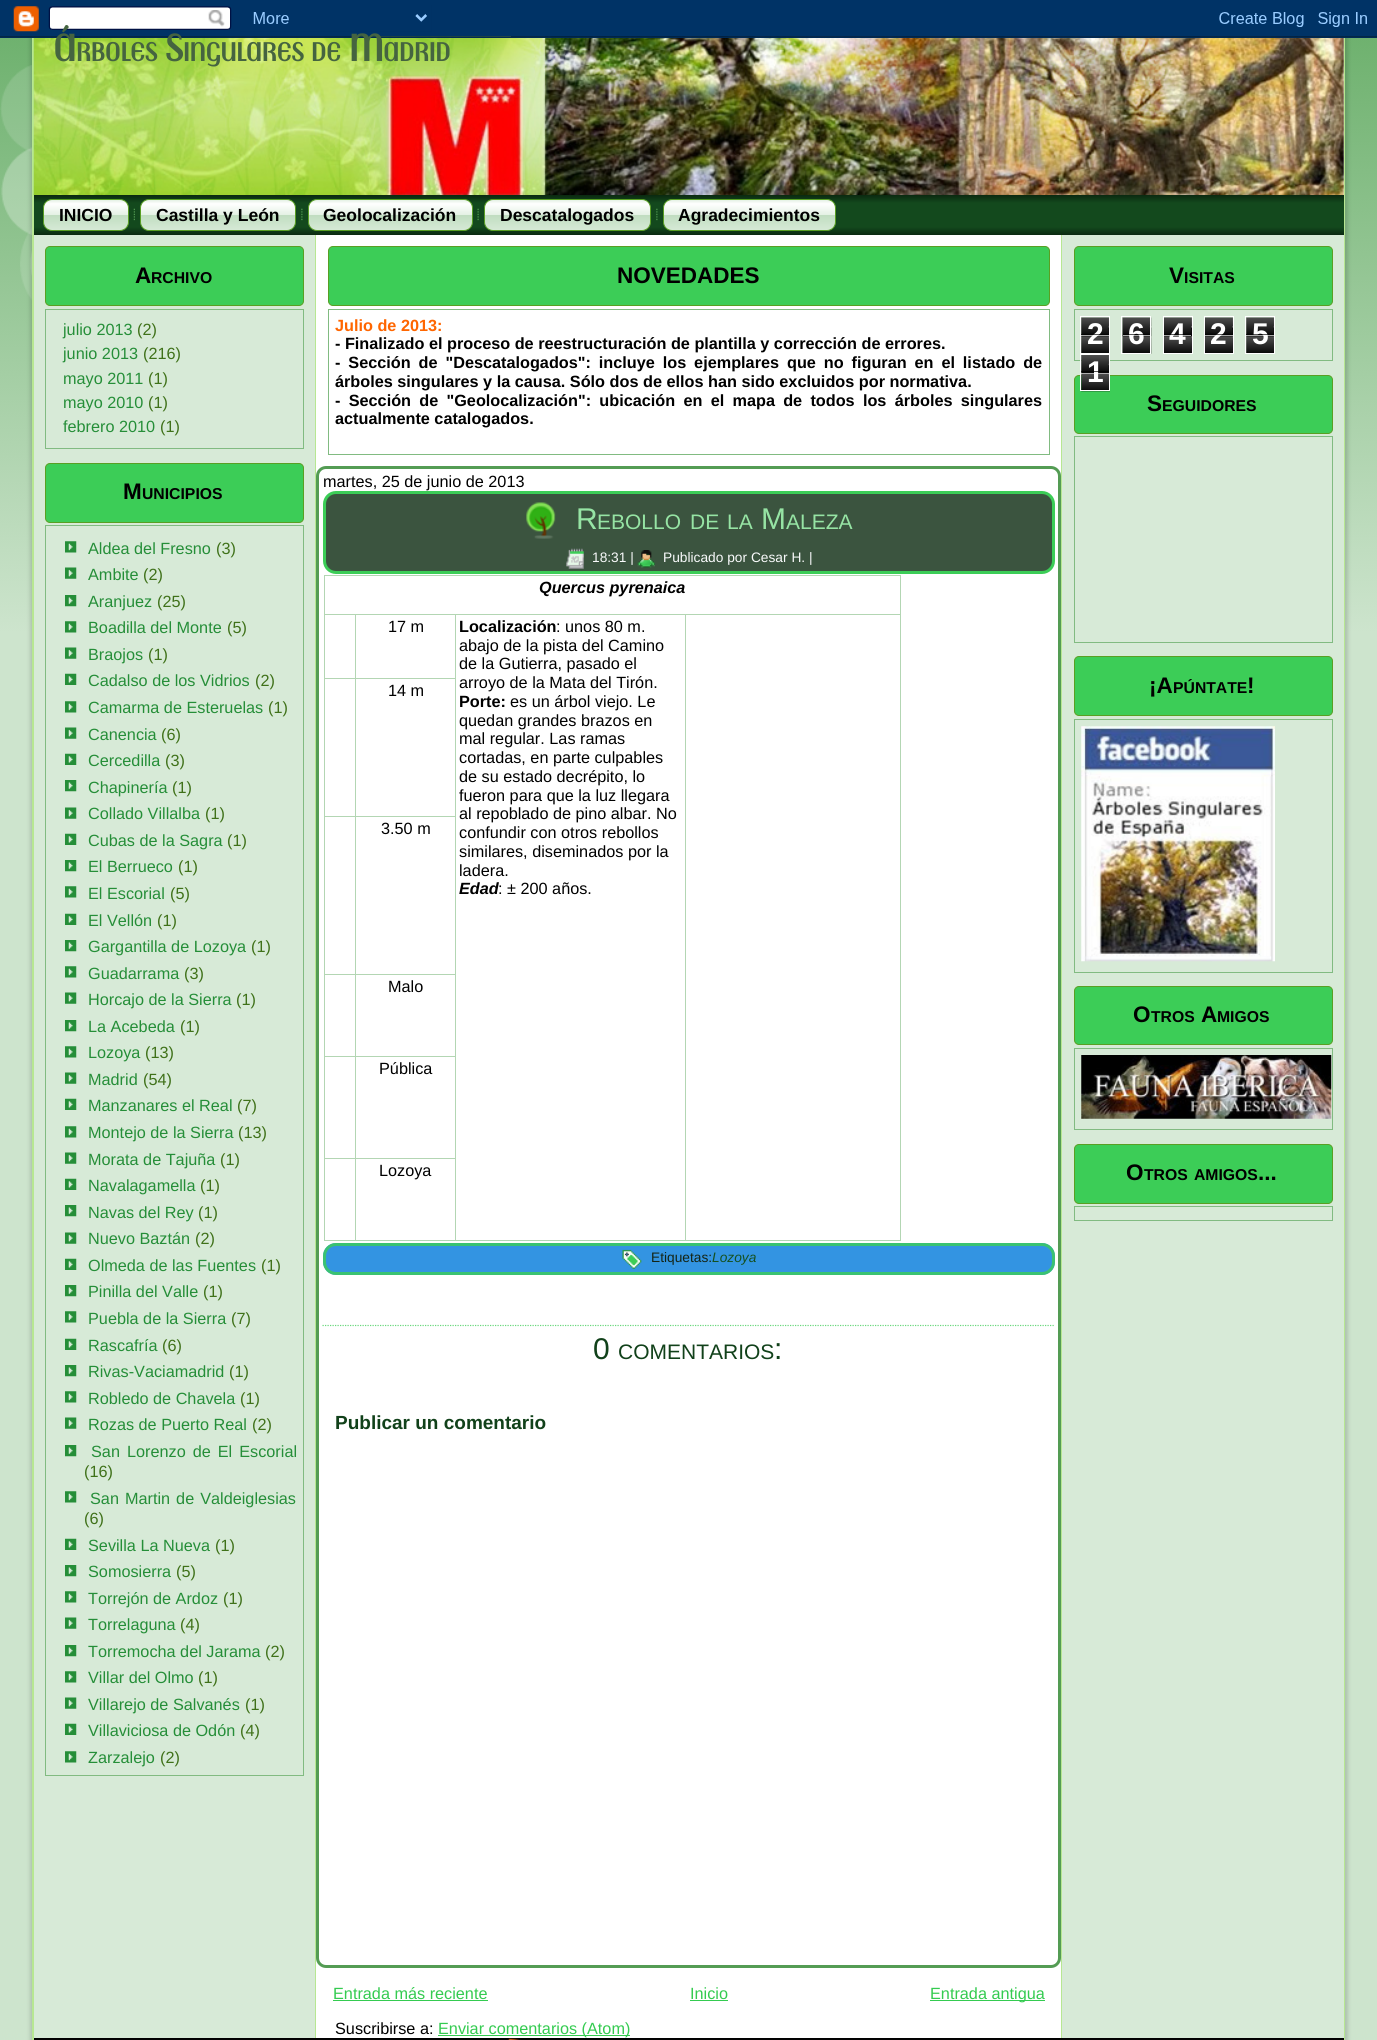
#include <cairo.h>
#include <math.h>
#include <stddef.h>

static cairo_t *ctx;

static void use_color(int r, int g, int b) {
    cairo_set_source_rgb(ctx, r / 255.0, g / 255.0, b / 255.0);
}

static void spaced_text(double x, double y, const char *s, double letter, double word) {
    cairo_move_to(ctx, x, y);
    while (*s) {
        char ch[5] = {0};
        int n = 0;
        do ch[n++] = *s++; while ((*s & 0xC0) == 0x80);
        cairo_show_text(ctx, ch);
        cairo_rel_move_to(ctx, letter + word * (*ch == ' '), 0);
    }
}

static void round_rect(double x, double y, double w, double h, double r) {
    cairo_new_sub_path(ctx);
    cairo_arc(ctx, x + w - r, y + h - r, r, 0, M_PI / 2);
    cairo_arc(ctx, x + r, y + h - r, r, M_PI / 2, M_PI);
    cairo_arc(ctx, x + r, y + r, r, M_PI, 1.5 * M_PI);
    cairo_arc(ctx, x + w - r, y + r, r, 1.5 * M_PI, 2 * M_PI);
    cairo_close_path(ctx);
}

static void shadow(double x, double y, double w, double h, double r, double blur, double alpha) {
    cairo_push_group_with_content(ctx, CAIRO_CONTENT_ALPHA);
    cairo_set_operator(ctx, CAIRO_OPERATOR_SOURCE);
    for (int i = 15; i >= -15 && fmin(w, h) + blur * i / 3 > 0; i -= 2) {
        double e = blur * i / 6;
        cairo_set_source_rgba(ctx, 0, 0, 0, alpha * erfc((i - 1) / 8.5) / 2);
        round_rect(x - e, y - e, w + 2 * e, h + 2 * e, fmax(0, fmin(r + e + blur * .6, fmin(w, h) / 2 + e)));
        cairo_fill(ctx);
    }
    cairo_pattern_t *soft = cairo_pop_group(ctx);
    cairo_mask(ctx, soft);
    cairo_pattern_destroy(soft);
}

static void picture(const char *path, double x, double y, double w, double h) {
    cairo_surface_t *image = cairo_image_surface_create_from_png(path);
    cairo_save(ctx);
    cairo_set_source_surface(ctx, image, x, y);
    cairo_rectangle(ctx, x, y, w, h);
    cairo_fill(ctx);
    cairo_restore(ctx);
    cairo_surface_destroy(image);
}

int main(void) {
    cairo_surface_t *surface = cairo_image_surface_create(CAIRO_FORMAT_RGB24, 1377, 2040);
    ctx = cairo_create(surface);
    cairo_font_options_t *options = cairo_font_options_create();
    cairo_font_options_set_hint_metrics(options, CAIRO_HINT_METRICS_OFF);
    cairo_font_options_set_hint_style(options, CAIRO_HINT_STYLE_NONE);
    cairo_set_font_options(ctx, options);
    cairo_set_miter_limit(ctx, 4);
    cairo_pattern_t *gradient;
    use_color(255, 255, 255);
    cairo_paint(ctx);
    picture("img2.png", 0, 36, 1377, 2004);
    use_color(0, 0, 0);
    shadow(30, 5, 1318, 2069, 28, 2, 0.15);
    use_color(255, 255, 255);
    cairo_rectangle(ctx, 316, 36, 1028, 2002);
    cairo_fill(ctx);
    use_color(183, 231, 146);
    cairo_set_fill_rule(ctx, CAIRO_FILL_RULE_EVEN_ODD);
    cairo_new_path(ctx);
    cairo_move_to(ctx, 32, 8);
    cairo_line_to(ctx, 1345, 8);
    cairo_line_to(ctx, 1345, 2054);
    cairo_curve_to(ctx, 1345, 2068, 1334, 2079, 1320, 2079);
    cairo_line_to(ctx, 58, 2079);
    cairo_curve_to(ctx, 44, 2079, 32, 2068, 32, 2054);
    cairo_close_path(ctx);
    cairo_move_to(ctx, 34, 8);
    cairo_line_to(ctx, 1344, 8);
    cairo_line_to(ctx, 1344, 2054);
    cairo_curve_to(ctx, 1344, 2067, 1333, 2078, 1320, 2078);
    cairo_line_to(ctx, 58, 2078);
    cairo_curve_to(ctx, 44, 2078, 34, 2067, 34, 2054);
    cairo_close_path(ctx);
    cairo_fill(ctx);
    picture("img3.png", 33, 36, 1311, 159);
    picture("img1.png", 0, 0, 1377, 38);
    cairo_select_font_face(ctx, "Trochut", CAIRO_FONT_SLANT_NORMAL, CAIRO_FONT_WEIGHT_BOLD);
    cairo_set_font_size(ctx, 38);
    use_color(69, 100, 64);
    cairo_move_to(ctx, 53, 61);
    cairo_show_text(ctx, "Á");
    cairo_set_font_size(ctx, 26.25);
    cairo_move_to(ctx, 76, 61);
    cairo_show_text(ctx, "RBOLES");
    cairo_set_font_size(ctx, 38);
    cairo_move_to(ctx, 165, 61);
    cairo_show_text(ctx, "S");
    cairo_set_font_size(ctx, 26.25);
    cairo_move_to(ctx, 183, 61);
    cairo_show_text(ctx, "INGULARES");
    cairo_move_to(ctx, 311, 61);
    cairo_show_text(ctx, "DE");
    cairo_set_font_size(ctx, 38);
    cairo_move_to(ctx, 349, 61);
    cairo_show_text(ctx, "M");
    cairo_set_font_size(ctx, 26.25);
    cairo_move_to(ctx, 383, 61);
    cairo_show_text(ctx, "ADRID");
    gradient = cairo_pattern_create_linear(689, 195, 689, 235);
    cairo_pattern_add_color_stop_rgba(gradient, 0, 0.039, 0.161, 0.063, 1);
    cairo_pattern_add_color_stop_rgba(gradient, 0.2, 0.075, 0.286, 0.114, 1);
    cairo_pattern_add_color_stop_rgba(gradient, 0.8, 0.075, 0.286, 0.114, 1);
    cairo_pattern_add_color_stop_rgba(gradient, 1, 0.039, 0.161, 0.063, 1);
    cairo_set_source(ctx, gradient);
    cairo_pattern_destroy(gradient);
    cairo_rectangle(ctx, 34, 195, 1310, 40);
    cairo_fill(ctx);
    gradient = cairo_pattern_create_linear(86, 199, 86, 231);
    cairo_pattern_add_color_stop_rgba(gradient, 0, 0.871, 0.929, 0.871, 1);
    cairo_pattern_add_color_stop_rgba(gradient, 0.15, 1, 1, 1, 1);
    cairo_pattern_add_color_stop_rgba(gradient, 0.5, 0.894, 0.945, 0.894, 1);
    cairo_pattern_add_color_stop_rgba(gradient, 0.5, 0.753, 0.867, 0.753, 1);
    cairo_pattern_add_color_stop_rgba(gradient, 1, 0.843, 0.918, 0.843, 1);
    cairo_set_source(ctx, gradient);
    cairo_pattern_destroy(gradient);
    round_rect(43.5, 199.5, 85, 31, 8.5);
    cairo_fill_preserve(ctx);
    use_color(89, 159, 35);
    cairo_set_line_width(ctx, 1);
    cairo_stroke(ctx);
    cairo_select_font_face(ctx, "Liberation Sans", CAIRO_FONT_SLANT_NORMAL, CAIRO_FONT_WEIGHT_BOLD);
    cairo_set_font_size(ctx, 17.5);
    use_color(0, 0, 0);
    cairo_move_to(ctx, 59, 221);
    cairo_show_text(ctx, "INICIO");
    picture("img4.png", 133, 208, 2, 13);
    gradient = cairo_pattern_create_linear(218, 199, 218, 231);
    cairo_pattern_add_color_stop_rgba(gradient, 0, 0.871, 0.929, 0.871, 1);
    cairo_pattern_add_color_stop_rgba(gradient, 0.15, 1, 1, 1, 1);
    cairo_pattern_add_color_stop_rgba(gradient, 0.5, 0.894, 0.945, 0.894, 1);
    cairo_pattern_add_color_stop_rgba(gradient, 0.5, 0.753, 0.867, 0.753, 1);
    cairo_pattern_add_color_stop_rgba(gradient, 1, 0.843, 0.918, 0.843, 1);
    cairo_set_source(ctx, gradient);
    cairo_pattern_destroy(gradient);
    round_rect(140.5, 199.5, 155, 31, 8.5);
    cairo_fill_preserve(ctx);
    use_color(89, 159, 35);
    cairo_stroke(ctx);
    use_color(0, 0, 0);
    cairo_move_to(ctx, 156, 221);
    cairo_show_text(ctx, "Castilla y León");
    picture("img5.png", 301, 208, 2, 13);
    gradient = cairo_pattern_create_linear(390, 199, 390, 231);
    cairo_pattern_add_color_stop_rgba(gradient, 0, 0.871, 0.929, 0.871, 1);
    cairo_pattern_add_color_stop_rgba(gradient, 0.15, 1, 1, 1, 1);
    cairo_pattern_add_color_stop_rgba(gradient, 0.5, 0.894, 0.945, 0.894, 1);
    cairo_pattern_add_color_stop_rgba(gradient, 0.5, 0.753, 0.867, 0.753, 1);
    cairo_pattern_add_color_stop_rgba(gradient, 1, 0.843, 0.918, 0.843, 1);
    cairo_set_source(ctx, gradient);
    cairo_pattern_destroy(gradient);
    round_rect(308.5, 199.5, 164, 31, 8.5);
    cairo_fill_preserve(ctx);
    use_color(89, 159, 35);
    cairo_stroke(ctx);
    use_color(0, 0, 0);
    cairo_move_to(ctx, 323, 221);
    cairo_show_text(ctx, "Geolocalización");
    picture("img6.png", 477, 208, 2, 13);
    gradient = cairo_pattern_create_linear(568, 199, 568, 231);
    cairo_pattern_add_color_stop_rgba(gradient, 0, 0.871, 0.929, 0.871, 1);
    cairo_pattern_add_color_stop_rgba(gradient, 0.15, 1, 1, 1, 1);
    cairo_pattern_add_color_stop_rgba(gradient, 0.5, 0.894, 0.945, 0.894, 1);
    cairo_pattern_add_color_stop_rgba(gradient, 0.5, 0.753, 0.867, 0.753, 1);
    cairo_pattern_add_color_stop_rgba(gradient, 1, 0.843, 0.918, 0.843, 1);
    cairo_set_source(ctx, gradient);
    cairo_pattern_destroy(gradient);
    round_rect(484.5, 199.5, 166, 31, 8.5);
    cairo_fill_preserve(ctx);
    use_color(89, 159, 35);
    cairo_stroke(ctx);
    use_color(0, 0, 0);
    cairo_move_to(ctx, 500, 221);
    cairo_show_text(ctx, "Descatalogados");
    picture("img5.png", 656, 208, 2, 13);
    gradient = cairo_pattern_create_linear(749, 199, 749, 231);
    cairo_pattern_add_color_stop_rgba(gradient, 0, 0.871, 0.929, 0.871, 1);
    cairo_pattern_add_color_stop_rgba(gradient, 0.15, 1, 1, 1, 1);
    cairo_pattern_add_color_stop_rgba(gradient, 0.5, 0.894, 0.945, 0.894, 1);
    cairo_pattern_add_color_stop_rgba(gradient, 0.5, 0.753, 0.867, 0.753, 1);
    cairo_pattern_add_color_stop_rgba(gradient, 1, 0.843, 0.918, 0.843, 1);
    cairo_set_source(ctx, gradient);
    cairo_pattern_destroy(gradient);
    round_rect(663.5, 199.5, 172, 31, 8.5);
    cairo_fill_preserve(ctx);
    use_color(89, 159, 35);
    cairo_stroke(ctx);
    use_color(0, 0, 0);
    cairo_move_to(ctx, 678, 221);
    cairo_show_text(ctx, "Agradecimientos");
    use_color(215, 234, 215);
    cairo_rectangle(ctx, 34, 235, 281, 1803);
    cairo_fill(ctx);
    use_color(183, 231, 146);
    cairo_rectangle(ctx, 315, 235, 1, 1803);
    cairo_fill(ctx);
    use_color(60, 205, 87);
    round_rect(45.5, 246.5, 258, 59, 4.5);
    cairo_fill_preserve(ctx);
    use_color(89, 159, 35);
    cairo_stroke(ctx);
    cairo_set_font_size(ctx, 22.5);
    use_color(0, 0, 0);
    cairo_move_to(ctx, 135, 283);
    cairo_show_text(ctx, "A");
    cairo_set_font_size(ctx, 15.75);
    cairo_move_to(ctx, 151, 283);
    cairo_show_text(ctx, "RCHIVO");
    cairo_rectangle(ctx, 45.5, 309.5, 258, 139);
    use_color(129, 187, 129);
    cairo_stroke(ctx);
    cairo_select_font_face(ctx, "Liberation Sans", CAIRO_FONT_SLANT_NORMAL, CAIRO_FONT_WEIGHT_NORMAL);
    cairo_set_font_size(ctx, 16.25);
    use_color(37, 142, 56);
    cairo_move_to(ctx, 63, 335);
    cairo_show_text(ctx, "julio 2013");
    use_color(63, 113, 25);
    cairo_move_to(ctx, 137, 335);
    cairo_show_text(ctx, "(2)");
    use_color(37, 142, 56);
    cairo_move_to(ctx, 63, 359);
    cairo_show_text(ctx, "junio 2013");
    use_color(63, 113, 25);
    cairo_move_to(ctx, 143, 359);
    cairo_show_text(ctx, "(216)");
    use_color(37, 142, 56);
    cairo_move_to(ctx, 63, 384);
    cairo_show_text(ctx, "mayo 2011");
    use_color(63, 113, 25);
    cairo_move_to(ctx, 148, 384);
    cairo_show_text(ctx, "(1)");
    use_color(37, 142, 56);
    cairo_move_to(ctx, 63, 408);
    cairo_show_text(ctx, "mayo 2010");
    use_color(63, 113, 25);
    cairo_move_to(ctx, 148, 408);
    cairo_show_text(ctx, "(1)");
    use_color(37, 142, 56);
    cairo_move_to(ctx, 63, 432);
    cairo_show_text(ctx, "febrero 2010");
    use_color(63, 113, 25);
    cairo_move_to(ctx, 160, 432);
    cairo_show_text(ctx, "(1)");
    use_color(60, 205, 87);
    round_rect(45.5, 463.5, 258, 59, 4.5);
    cairo_fill_preserve(ctx);
    use_color(89, 159, 35);
    cairo_stroke(ctx);
    cairo_select_font_face(ctx, "Liberation Sans", CAIRO_FONT_SLANT_NORMAL, CAIRO_FONT_WEIGHT_BOLD);
    cairo_set_font_size(ctx, 22.5);
    use_color(0, 0, 0);
    cairo_move_to(ctx, 123, 499);
    cairo_show_text(ctx, "M");
    cairo_set_font_size(ctx, 15.75);
    cairo_move_to(ctx, 142, 499);
    cairo_show_text(ctx, "UNICIPIOS");
    cairo_rectangle(ctx, 45.5, 525.5, 258, 1250);
    use_color(129, 187, 129);
    cairo_stroke(ctx);
    picture("img7.png", 65, 541, 12, 12);
    cairo_select_font_face(ctx, "Liberation Sans", CAIRO_FONT_SLANT_NORMAL, CAIRO_FONT_WEIGHT_NORMAL);
    cairo_set_font_size(ctx, 16.25);
    use_color(37, 142, 56);
    cairo_move_to(ctx, 88, 554);
    cairo_show_text(ctx, "Aldea del Fresno");
    use_color(63, 113, 25);
    cairo_move_to(ctx, 216, 554);
    cairo_show_text(ctx, "(3)");
    picture("img8.png", 65, 567, 12, 12);
    use_color(37, 142, 56);
    cairo_move_to(ctx, 88, 580);
    cairo_show_text(ctx, "Ambite");
    use_color(63, 113, 25);
    cairo_move_to(ctx, 143, 580);
    cairo_show_text(ctx, "(2)");
    picture("img9.png", 65, 595, 12, 12);
    use_color(37, 142, 56);
    cairo_move_to(ctx, 88, 607);
    cairo_show_text(ctx, "Aranjuez");
    use_color(63, 113, 25);
    cairo_move_to(ctx, 157, 607);
    cairo_show_text(ctx, "(25)");
    picture("img7.png", 65, 621, 12, 12);
    use_color(37, 142, 56);
    cairo_move_to(ctx, 88, 633);
    cairo_show_text(ctx, "Boadilla del Monte");
    use_color(63, 113, 25);
    cairo_move_to(ctx, 227, 633);
    cairo_show_text(ctx, "(5)");
    picture("img8.png", 65, 647, 12, 12);
    use_color(37, 142, 56);
    cairo_move_to(ctx, 88, 660);
    cairo_show_text(ctx, "Braojos");
    use_color(63, 113, 25);
    cairo_move_to(ctx, 148, 660);
    cairo_show_text(ctx, "(1)");
    picture("img10.png", 65, 673, 12, 12);
    use_color(37, 142, 56);
    cairo_move_to(ctx, 88, 686);
    cairo_show_text(ctx, "Cadalso de los Vidrios");
    use_color(63, 113, 25);
    cairo_move_to(ctx, 255, 686);
    cairo_show_text(ctx, "(2)");
    picture("img7.png", 65, 701, 12, 12);
    use_color(37, 142, 56);
    cairo_move_to(ctx, 88, 713);
    cairo_show_text(ctx, "Camarma de Esteruelas");
    use_color(63, 113, 25);
    cairo_move_to(ctx, 268, 713);
    cairo_show_text(ctx, "(1)");
    picture("img8.png", 65, 727, 12, 12);
    use_color(37, 142, 56);
    cairo_move_to(ctx, 88, 740);
    cairo_show_text(ctx, "Canencia");
    use_color(63, 113, 25);
    cairo_move_to(ctx, 161, 740);
    cairo_show_text(ctx, "(6)");
    picture("img10.png", 65, 753, 12, 12);
    use_color(37, 142, 56);
    cairo_move_to(ctx, 88, 766);
    cairo_show_text(ctx, "Cercedilla");
    use_color(63, 113, 25);
    cairo_move_to(ctx, 165, 766);
    cairo_show_text(ctx, "(3)");
    picture("img9.png", 65, 780, 12, 12);
    use_color(37, 142, 56);
    cairo_move_to(ctx, 88, 793);
    cairo_show_text(ctx, "Chapinería");
    use_color(63, 113, 25);
    cairo_move_to(ctx, 172, 793);
    cairo_show_text(ctx, "(1)");
    picture("img8.png", 65, 807, 12, 12);
    use_color(37, 142, 56);
    cairo_move_to(ctx, 88, 819);
    cairo_show_text(ctx, "Collado Villalba");
    use_color(63, 113, 25);
    cairo_move_to(ctx, 205, 819);
    cairo_show_text(ctx, "(1)");
    picture("img10.png", 65, 833, 12, 12);
    use_color(37, 142, 56);
    cairo_move_to(ctx, 88, 846);
    cairo_show_text(ctx, "Cubas de la Sagra");
    use_color(63, 113, 25);
    cairo_move_to(ctx, 227, 846);
    cairo_show_text(ctx, "(1)");
    picture("img9.png", 65, 860, 12, 12);
    use_color(37, 142, 56);
    cairo_move_to(ctx, 88, 872);
    cairo_show_text(ctx, "El Berrueco");
    use_color(63, 113, 25);
    cairo_move_to(ctx, 178, 872);
    cairo_show_text(ctx, "(1)");
    picture("img7.png", 65, 886, 12, 12);
    use_color(37, 142, 56);
    cairo_move_to(ctx, 88, 899);
    cairo_show_text(ctx, "El Escorial");
    use_color(63, 113, 25);
    cairo_move_to(ctx, 170, 899);
    cairo_show_text(ctx, "(5)");
    picture("img10.png", 65, 913, 12, 12);
    use_color(37, 142, 56);
    cairo_move_to(ctx, 88, 926);
    cairo_show_text(ctx, "El Vellón");
    use_color(63, 113, 25);
    cairo_move_to(ctx, 157, 926);
    cairo_show_text(ctx, "(1)");
    picture("img9.png", 65, 940, 12, 12);
    use_color(37, 142, 56);
    cairo_move_to(ctx, 88, 952);
    cairo_show_text(ctx, "Gargantilla de Lozoya");
    use_color(63, 113, 25);
    cairo_move_to(ctx, 251, 952);
    cairo_show_text(ctx, "(1)");
    picture("img7.png", 65, 966, 12, 12);
    use_color(37, 142, 56);
    cairo_move_to(ctx, 88, 979);
    cairo_show_text(ctx, "Guadarrama");
    use_color(63, 113, 25);
    cairo_move_to(ctx, 184, 979);
    cairo_show_text(ctx, "(3)");
    picture("img11.png", 65, 992, 12, 12);
    use_color(37, 142, 56);
    cairo_move_to(ctx, 88, 1005);
    cairo_show_text(ctx, "Horcajo de la Sierra");
    use_color(63, 113, 25);
    cairo_move_to(ctx, 236, 1005);
    cairo_show_text(ctx, "(1)");
    picture("img9.png", 65, 1020, 12, 12);
    use_color(37, 142, 56);
    cairo_move_to(ctx, 88, 1032);
    cairo_show_text(ctx, "La Acebeda");
    use_color(63, 113, 25);
    cairo_move_to(ctx, 180, 1032);
    cairo_show_text(ctx, "(1)");
    picture("img7.png", 65, 1046, 12, 12);
    use_color(37, 142, 56);
    cairo_move_to(ctx, 88, 1058);
    cairo_show_text(ctx, "Lozoya");
    use_color(63, 113, 25);
    cairo_move_to(ctx, 145, 1058);
    cairo_show_text(ctx, "(13)");
    picture("img8.png", 65, 1072, 12, 12);
    use_color(37, 142, 56);
    cairo_move_to(ctx, 88, 1085);
    cairo_show_text(ctx, "Madrid");
    use_color(63, 113, 25);
    cairo_move_to(ctx, 143, 1085);
    cairo_show_text(ctx, "(54)");
    picture("img10.png", 65, 1098, 12, 12);
    use_color(37, 142, 56);
    cairo_move_to(ctx, 88, 1111);
    cairo_show_text(ctx, "Manzanares el Real");
    use_color(63, 113, 25);
    cairo_move_to(ctx, 237, 1111);
    cairo_show_text(ctx, "(7)");
    picture("img7.png", 65, 1126, 12, 12);
    use_color(37, 142, 56);
    cairo_move_to(ctx, 88, 1138);
    cairo_show_text(ctx, "Montejo de la Sierra");
    use_color(63, 113, 25);
    cairo_move_to(ctx, 238, 1138);
    cairo_show_text(ctx, "(13)");
    picture("img8.png", 65, 1152, 12, 12);
    use_color(37, 142, 56);
    cairo_move_to(ctx, 88, 1165);
    cairo_show_text(ctx, "Morata de Tajuña");
    use_color(63, 113, 25);
    cairo_move_to(ctx, 220, 1165);
    cairo_show_text(ctx, "(1)");
    picture("img10.png", 65, 1178, 12, 12);
    use_color(37, 142, 56);
    cairo_move_to(ctx, 88, 1191);
    cairo_show_text(ctx, "Navalagamella");
    use_color(63, 113, 25);
    cairo_move_to(ctx, 200, 1191);
    cairo_show_text(ctx, "(1)");
    picture("img9.png", 65, 1205, 12, 12);
    use_color(37, 142, 56);
    cairo_move_to(ctx, 88, 1218);
    cairo_show_text(ctx, "Navas del Rey");
    use_color(63, 113, 25);
    cairo_move_to(ctx, 198, 1218);
    cairo_show_text(ctx, "(1)");
    picture("img8.png", 65, 1232, 12, 12);
    use_color(37, 142, 56);
    cairo_move_to(ctx, 88, 1244);
    cairo_show_text(ctx, "Nuevo Baztán");
    use_color(63, 113, 25);
    cairo_move_to(ctx, 195, 1244);
    cairo_show_text(ctx, "(2)");
    picture("img10.png", 65, 1258, 12, 12);
    use_color(37, 142, 56);
    cairo_move_to(ctx, 88, 1271);
    cairo_show_text(ctx, "Olmeda de las Fuentes");
    use_color(63, 113, 25);
    cairo_move_to(ctx, 261, 1271);
    cairo_show_text(ctx, "(1)");
    picture("img9.png", 65, 1285, 12, 12);
    use_color(37, 142, 56);
    cairo_move_to(ctx, 88, 1297);
    cairo_show_text(ctx, "Pinilla del Valle");
    use_color(63, 113, 25);
    cairo_move_to(ctx, 203, 1297);
    cairo_show_text(ctx, "(1)");
    picture("img7.png", 65, 1311, 12, 12);
    use_color(37, 142, 56);
    cairo_move_to(ctx, 88, 1324);
    cairo_show_text(ctx, "Puebla de la Sierra");
    use_color(63, 113, 25);
    cairo_move_to(ctx, 231, 1324);
    cairo_show_text(ctx, "(7)");
    picture("img10.png", 65, 1338, 12, 12);
    use_color(37, 142, 56);
    cairo_move_to(ctx, 88, 1351);
    cairo_show_text(ctx, "Rascafría");
    use_color(63, 113, 25);
    cairo_move_to(ctx, 162, 1351);
    cairo_show_text(ctx, "(6)");
    picture("img9.png", 65, 1365, 12, 12);
    use_color(37, 142, 56);
    cairo_move_to(ctx, 88, 1377);
    cairo_show_text(ctx, "Rivas-Vaciamadrid");
    use_color(63, 113, 25);
    cairo_move_to(ctx, 229, 1377);
    cairo_show_text(ctx, "(1)");
    picture("img7.png", 65, 1391, 12, 12);
    use_color(37, 142, 56);
    cairo_move_to(ctx, 88, 1404);
    cairo_show_text(ctx, "Robledo de Chavela");
    use_color(63, 113, 25);
    cairo_move_to(ctx, 240, 1404);
    cairo_show_text(ctx, "(1)");
    picture("img8.png", 65, 1417, 12, 12);
    use_color(37, 142, 56);
    cairo_move_to(ctx, 88, 1430);
    cairo_show_text(ctx, "Rozas de Puerto Real");
    use_color(63, 113, 25);
    cairo_move_to(ctx, 252, 1430);
    cairo_show_text(ctx, "(2)");
    picture("img9.png", 65, 1445, 12, 12);
    use_color(37, 142, 56);
    spaced_text(91, 1457, "San Lorenzo de El Escorial", 0, 2.5);
    use_color(63, 113, 25);
    cairo_move_to(ctx, 84, 1477);
    cairo_show_text(ctx, "(16)");
    picture("img7.png", 65, 1491, 12, 12);
    use_color(37, 142, 56);
    spaced_text(90, 1504, "San Martin de Valdeiglesias", 0, 1.5);
    use_color(63, 113, 25);
    cairo_move_to(ctx, 84, 1524);
    cairo_show_text(ctx, "(6)");
    picture("img10.png", 65, 1538, 12, 12);
    use_color(37, 142, 56);
    cairo_move_to(ctx, 88, 1551);
    cairo_show_text(ctx, "Sevilla La Nueva");
    use_color(63, 113, 25);
    cairo_move_to(ctx, 215, 1551);
    cairo_show_text(ctx, "(1)");
    picture("img9.png", 65, 1565, 12, 12);
    use_color(37, 142, 56);
    cairo_move_to(ctx, 88, 1577);
    cairo_show_text(ctx, "Somosierra");
    use_color(63, 113, 25);
    cairo_move_to(ctx, 176, 1577);
    cairo_show_text(ctx, "(5)");
    picture("img7.png", 65, 1591, 12, 12);
    use_color(37, 142, 56);
    cairo_move_to(ctx, 88, 1604);
    cairo_show_text(ctx, "Torrejón de Ardoz");
    use_color(63, 113, 25);
    cairo_move_to(ctx, 223, 1604);
    cairo_show_text(ctx, "(1)");
    picture("img8.png", 65, 1617, 12, 12);
    use_color(37, 142, 56);
    cairo_move_to(ctx, 88, 1630);
    cairo_show_text(ctx, "Torrelaguna");
    use_color(63, 113, 25);
    cairo_move_to(ctx, 180, 1630);
    cairo_show_text(ctx, "(4)");
    picture("img9.png", 65, 1645, 12, 12);
    use_color(37, 142, 56);
    cairo_move_to(ctx, 88, 1657);
    cairo_show_text(ctx, "Torremocha del Jarama");
    use_color(63, 113, 25);
    cairo_move_to(ctx, 265, 1657);
    cairo_show_text(ctx, "(2)");
    picture("img7.png", 65, 1671, 12, 12);
    use_color(37, 142, 56);
    cairo_move_to(ctx, 88, 1683);
    cairo_show_text(ctx, "Villar del Olmo");
    use_color(63, 113, 25);
    cairo_move_to(ctx, 198, 1683);
    cairo_show_text(ctx, "(1)");
    picture("img8.png", 65, 1697, 12, 12);
    use_color(37, 142, 56);
    cairo_move_to(ctx, 88, 1710);
    cairo_show_text(ctx, "Villarejo de Salvanés");
    use_color(63, 113, 25);
    cairo_move_to(ctx, 245, 1710);
    cairo_show_text(ctx, "(1)");
    picture("img10.png", 65, 1723, 12, 12);
    use_color(37, 142, 56);
    cairo_move_to(ctx, 88, 1736);
    cairo_show_text(ctx, "Villaviciosa de Odón");
    use_color(63, 113, 25);
    cairo_move_to(ctx, 240, 1736);
    cairo_show_text(ctx, "(4)");
    picture("img7.png", 65, 1751, 12, 12);
    use_color(37, 142, 56);
    cairo_move_to(ctx, 88, 1763);
    cairo_show_text(ctx, "Zarzalejo");
    use_color(63, 113, 25);
    cairo_move_to(ctx, 160, 1763);
    cairo_show_text(ctx, "(2)");
    use_color(60, 205, 87);
    round_rect(328.5, 246.5, 721, 59, 4.5);
    cairo_fill_preserve(ctx);
    use_color(89, 159, 35);
    cairo_stroke(ctx);
    cairo_select_font_face(ctx, "Liberation Sans", CAIRO_FONT_SLANT_NORMAL, CAIRO_FONT_WEIGHT_BOLD);
    cairo_set_font_size(ctx, 22.5);
    use_color(0, 0, 0);
    cairo_move_to(ctx, 617, 283);
    cairo_show_text(ctx, "NOVEDADES");
    cairo_rectangle(ctx, 328.5, 309.5, 721, 145);
    use_color(129, 187, 129);
    cairo_stroke(ctx);
    cairo_set_font_size(ctx, 16.25);
    use_color(255, 102, 0);
    cairo_move_to(ctx, 335, 331);
    cairo_show_text(ctx, "Julio de 2013:");
    use_color(0, 0, 0);
    cairo_move_to(ctx, 335, 349);
    cairo_show_text(ctx, "- Finalizado el proceso de reestructuración de plantilla y corrección de errores.");
    spaced_text(335, 368, "- Sección de \"Descatalogados\": incluye los ejemplares que no figuran en el listado de", 0, 3.4);
    cairo_move_to(ctx, 335, 387);
    cairo_show_text(ctx, "árboles singulares y la causa. Sólo dos de ellos han sido excluidos por normativa.");
    spaced_text(335, 406, "- Sección de \"Geolocalización\": ubicación en el mapa de todos los árboles singulares", 0, 3.75);
    cairo_move_to(ctx, 335, 424);
    cairo_show_text(ctx, "actualmente catalogados.");
    round_rect(317.5, 467.5, 742, 1499, 8.5);
    use_color(84, 156, 84);
    cairo_set_line_width(ctx, 3);
    cairo_stroke(ctx);
    cairo_select_font_face(ctx, "Liberation Sans", CAIRO_FONT_SLANT_NORMAL, CAIRO_FONT_WEIGHT_NORMAL);
    use_color(0, 0, 0);
    cairo_move_to(ctx, 323, 487);
    cairo_show_text(ctx, "martes, 25 de junio de 2013");
    use_color(59, 84, 63);
    round_rect(324.5, 492.5, 729, 80, 11.5);
    cairo_fill_preserve(ctx);
    use_color(60, 205, 87);
    cairo_stroke(ctx);
    picture("img12.png", 526, 502, 30, 37);
    cairo_set_font_size(ctx, 30);
    use_color(150, 228, 164);
    cairo_move_to(ctx, 576, 529);
    cairo_show_text(ctx, "R");
    cairo_set_font_size(ctx, 21);
    cairo_move_to(ctx, 597, 529);
    cairo_show_text(ctx, "EBOLLO");
    cairo_move_to(ctx, 690, 529);
    cairo_show_text(ctx, "DE");
    cairo_move_to(ctx, 727, 529);
    cairo_show_text(ctx, "LA");
    cairo_set_font_size(ctx, 30);
    cairo_move_to(ctx, 761, 529);
    cairo_show_text(ctx, "M");
    cairo_set_font_size(ctx, 21);
    cairo_move_to(ctx, 786, 529);
    cairo_show_text(ctx, "ALEZA");
    picture("img13.png", 566, 548, 18, 21);
    cairo_set_font_size(ctx, 13.75);
    use_color(249, 250, 251);
    cairo_move_to(ctx, 592, 562);
    cairo_show_text(ctx, "18:31 |");
    picture("img14.png", 637, 550, 18, 18);
    cairo_move_to(ctx, 663, 562);
    cairo_show_text(ctx, "Publicado por Cesar H. |");
    use_color(179, 214, 179);
    cairo_rectangle(ctx, 324, 575, 577, 1);
    cairo_fill(ctx);
    cairo_rectangle(ctx, 685, 614, 216, 1);
    cairo_fill(ctx);
    cairo_rectangle(ctx, 900, 614, 1, 627);
    cairo_fill(ctx);
    cairo_rectangle(ctx, 900, 575, 1, 40);
    cairo_fill(ctx);
    cairo_rectangle(ctx, 685, 1240, 216, 1);
    cairo_fill(ctx);
    cairo_rectangle(ctx, 685, 614, 1, 627);
    cairo_fill(ctx);
    cairo_rectangle(ctx, 455, 614, 231, 1);
    cairo_fill(ctx);
    cairo_rectangle(ctx, 355, 1240, 101, 1);
    cairo_fill(ctx);
    cairo_rectangle(ctx, 455, 1240, 231, 1);
    cairo_fill(ctx);
    cairo_rectangle(ctx, 355, 678, 101, 1);
    cairo_fill(ctx);
    cairo_rectangle(ctx, 355, 816, 101, 1);
    cairo_fill(ctx);
    cairo_rectangle(ctx, 355, 974, 101, 1);
    cairo_fill(ctx);
    cairo_rectangle(ctx, 355, 1056, 101, 1);
    cairo_fill(ctx);
    cairo_rectangle(ctx, 355, 1158, 101, 1);
    cairo_fill(ctx);
    cairo_rectangle(ctx, 455, 614, 1, 627);
    cairo_fill(ctx);
    cairo_rectangle(ctx, 355, 614, 101, 1);
    cairo_fill(ctx);
    cairo_rectangle(ctx, 355, 1158, 1, 83);
    cairo_fill(ctx);
    cairo_rectangle(ctx, 324, 1158, 32, 1);
    cairo_fill(ctx);
    cairo_rectangle(ctx, 355, 1056, 1, 103);
    cairo_fill(ctx);
    cairo_rectangle(ctx, 324, 1056, 32, 1);
    cairo_fill(ctx);
    cairo_rectangle(ctx, 355, 974, 1, 84);
    cairo_fill(ctx);
    cairo_rectangle(ctx, 324, 974, 32, 1);
    cairo_fill(ctx);
    cairo_rectangle(ctx, 355, 816, 1, 159);
    cairo_fill(ctx);
    cairo_rectangle(ctx, 324, 816, 32, 1);
    cairo_fill(ctx);
    cairo_rectangle(ctx, 355, 678, 1, 140);
    cairo_fill(ctx);
    cairo_rectangle(ctx, 324, 678, 32, 1);
    cairo_fill(ctx);
    cairo_rectangle(ctx, 355, 614, 1, 65);
    cairo_fill(ctx);
    cairo_rectangle(ctx, 324, 614, 32, 1);
    cairo_fill(ctx);
    cairo_rectangle(ctx, 324, 1240, 32, 1);
    cairo_fill(ctx);
    cairo_rectangle(ctx, 324, 1158, 1, 83);
    cairo_fill(ctx);
    cairo_rectangle(ctx, 324, 1056, 1, 103);
    cairo_fill(ctx);
    cairo_rectangle(ctx, 324, 974, 1, 84);
    cairo_fill(ctx);
    cairo_rectangle(ctx, 324, 816, 1, 159);
    cairo_fill(ctx);
    cairo_rectangle(ctx, 324, 678, 1, 140);
    cairo_fill(ctx);
    cairo_rectangle(ctx, 324, 614, 1, 65);
    cairo_fill(ctx);
    cairo_rectangle(ctx, 324, 575, 1, 40);
    cairo_fill(ctx);
    cairo_select_font_face(ctx, "Liberation Sans", CAIRO_FONT_SLANT_ITALIC, CAIRO_FONT_WEIGHT_BOLD);
    cairo_set_font_size(ctx, 16.25);
    use_color(0, 0, 0);
    cairo_move_to(ctx, 539, 593);
    cairo_show_text(ctx, "Quercus pyrenaica");
    cairo_select_font_face(ctx, "Liberation Sans", CAIRO_FONT_SLANT_NORMAL, CAIRO_FONT_WEIGHT_NORMAL);
    cairo_move_to(ctx, 388, 632);
    cairo_show_text(ctx, "17 m");
    cairo_select_font_face(ctx, "Liberation Sans", CAIRO_FONT_SLANT_NORMAL, CAIRO_FONT_WEIGHT_BOLD);
    cairo_move_to(ctx, 459, 632);
    cairo_show_text(ctx, "Localización");
    cairo_select_font_face(ctx, "Liberation Sans", CAIRO_FONT_SLANT_NORMAL, CAIRO_FONT_WEIGHT_NORMAL);
    cairo_move_to(ctx, 556, 632);
    cairo_show_text(ctx, ": unos 80 m.");
    cairo_move_to(ctx, 459, 651);
    cairo_show_text(ctx, "abajo de la pista del Camino");
    cairo_move_to(ctx, 459, 669);
    cairo_show_text(ctx, "de la Gutierra, pasado el");
    cairo_move_to(ctx, 459, 688);
    cairo_show_text(ctx, "arroyo de la Mata del Tirón.");
    cairo_select_font_face(ctx, "Liberation Sans", CAIRO_FONT_SLANT_NORMAL, CAIRO_FONT_WEIGHT_BOLD);
    cairo_move_to(ctx, 459, 707);
    cairo_show_text(ctx, "Porte:");
    cairo_select_font_face(ctx, "Liberation Sans", CAIRO_FONT_SLANT_NORMAL, CAIRO_FONT_WEIGHT_NORMAL);
    cairo_move_to(ctx, 510, 707);
    cairo_show_text(ctx, "es un árbol viejo. Le");
    cairo_move_to(ctx, 459, 726);
    cairo_show_text(ctx, "quedan grandes brazos en");
    cairo_move_to(ctx, 459, 744);
    cairo_show_text(ctx, "mal regular. Las ramas");
    cairo_move_to(ctx, 459, 763);
    cairo_show_text(ctx, "cortadas, en parte culpables");
    cairo_move_to(ctx, 459, 782);
    cairo_show_text(ctx, "de su estado decrépito, lo");
    cairo_move_to(ctx, 459, 801);
    cairo_show_text(ctx, "fueron para que la luz llegara");
    cairo_move_to(ctx, 459, 819);
    cairo_show_text(ctx, "al repoblado de pino albar. No");
    cairo_move_to(ctx, 459, 838);
    cairo_show_text(ctx, "confundir con otros rebollos");
    cairo_move_to(ctx, 459, 857);
    cairo_show_text(ctx, "similares, diseminados por la");
    cairo_move_to(ctx, 459, 876);
    cairo_show_text(ctx, "ladera.");
    cairo_select_font_face(ctx, "Liberation Sans", CAIRO_FONT_SLANT_ITALIC, CAIRO_FONT_WEIGHT_BOLD);
    cairo_move_to(ctx, 459, 894);
    cairo_show_text(ctx, "Edad");
    cairo_select_font_face(ctx, "Liberation Sans", CAIRO_FONT_SLANT_NORMAL, CAIRO_FONT_WEIGHT_NORMAL);
    cairo_move_to(ctx, 498, 894);
    cairo_show_text(ctx, ": ± 200 años.");
    cairo_move_to(ctx, 388, 696);
    cairo_show_text(ctx, "14 m");
    cairo_move_to(ctx, 381, 834);
    cairo_show_text(ctx, "3.50 m");
    cairo_move_to(ctx, 388, 992);
    cairo_show_text(ctx, "Malo");
    cairo_move_to(ctx, 379, 1074);
    cairo_show_text(ctx, "Pública");
    cairo_move_to(ctx, 379, 1176);
    cairo_show_text(ctx, "Lozoya");
    use_color(51, 148, 226);
    round_rect(323, 1243, 732, 32, 13);
    cairo_fill(ctx);
    round_rect(324.5, 1244.5, 729, 29, 11.5);
    cairo_set_source_rgba(ctx, 0.235, 0.804, 0.341, 0.8);
    cairo_stroke(ctx);
    picture("img15.png", 622, 1249, 20, 20);
    cairo_set_font_size(ctx, 13.75);
    use_color(20, 36, 20);
    cairo_move_to(ctx, 651, 1262);
    cairo_show_text(ctx, "Etiquetas:");
    cairo_select_font_face(ctx, "Liberation Sans", CAIRO_FONT_SLANT_ITALIC, CAIRO_FONT_WEIGHT_NORMAL);
    use_color(21, 81, 32);
    cairo_move_to(ctx, 712, 1262);
    cairo_show_text(ctx, "Lozoya");
    cairo_new_path(ctx);
    cairo_move_to(ctx, 322.5, 1325.5);
    cairo_line_to(ctx, 1055, 1325.5);
    use_color(105, 216, 125);
    cairo_set_line_width(ctx, 1.2);
    cairo_set_dash(ctx, (double[]){1.25, 1.25}, 2, 0);
    cairo_stroke(ctx);
    cairo_select_font_face(ctx, "Liberation Sans", CAIRO_FONT_SLANT_NORMAL, CAIRO_FONT_WEIGHT_NORMAL);
    cairo_set_font_size(ctx, 30);
    use_color(17, 65, 26);
    cairo_move_to(ctx, 593, 1359);
    cairo_show_text(ctx, "0");
    cairo_set_font_size(ctx, 21);
    cairo_move_to(ctx, 618, 1359);
    cairo_show_text(ctx, "COMENTARIOS");
    cairo_set_font_size(ctx, 30);
    cairo_move_to(ctx, 774, 1359);
    cairo_show_text(ctx, ":");
    cairo_select_font_face(ctx, "Liberation Sans", CAIRO_FONT_SLANT_NORMAL, CAIRO_FONT_WEIGHT_BOLD);
    cairo_set_font_size(ctx, 19);
    cairo_move_to(ctx, 335, 1429);
    cairo_show_text(ctx, "Publicar un comentario");
    cairo_select_font_face(ctx, "Liberation Sans", CAIRO_FONT_SLANT_NORMAL, CAIRO_FONT_WEIGHT_NORMAL);
    cairo_set_font_size(ctx, 16.25);
    use_color(52, 203, 80);
    cairo_move_to(ctx, 333, 1999);
    cairo_show_text(ctx, "Entrada más reciente");
    cairo_rectangle(ctx, 333, 2000, 155, 1);
    cairo_fill(ctx);
    cairo_move_to(ctx, 690, 1999);
    cairo_show_text(ctx, "Inicio");
    cairo_rectangle(ctx, 690, 2000, 38, 1);
    cairo_fill(ctx);
    cairo_rectangle(ctx, 930, 2000, 115, 1);
    cairo_fill(ctx);
    cairo_move_to(ctx, 930, 1999);
    cairo_show_text(ctx, "Entrada antigua");
    use_color(0, 0, 0);
    cairo_move_to(ctx, 335, 2034);
    cairo_show_text(ctx, "Suscribirse a:");
    use_color(52, 203, 80);
    cairo_rectangle(ctx, 438, 2035, 192, 1);
    cairo_fill(ctx);
    cairo_move_to(ctx, 438, 2034);
    cairo_show_text(ctx, "Enviar comentarios (Atom)");
    use_color(215, 234, 215);
    cairo_rectangle(ctx, 1062, 235, 282, 1803);
    cairo_fill(ctx);
    use_color(183, 231, 146);
    cairo_rectangle(ctx, 1061, 235, 1, 1803);
    cairo_fill(ctx);
    use_color(60, 205, 87);
    round_rect(1074.5, 246.5, 258, 59, 4.5);
    cairo_fill_preserve(ctx);
    use_color(89, 159, 35);
    cairo_set_line_width(ctx, 1);
    cairo_set_dash(ctx, NULL, 0, 0);
    cairo_stroke(ctx);
    cairo_select_font_face(ctx, "Liberation Sans", CAIRO_FONT_SLANT_NORMAL, CAIRO_FONT_WEIGHT_BOLD);
    cairo_set_font_size(ctx, 22.5);
    use_color(0, 0, 0);
    cairo_move_to(ctx, 1169, 283);
    cairo_show_text(ctx, "V");
    cairo_set_font_size(ctx, 15.75);
    cairo_move_to(ctx, 1184, 283);
    cairo_show_text(ctx, "ISITAS");
    cairo_rectangle(ctx, 1074.5, 309.5, 258, 51);
    use_color(129, 187, 129);
    cairo_stroke(ctx);
    picture("img16.png", 1081, 317, 28, 36);
    cairo_rectangle(ctx, 1080.5, 316.5, 29, 37);
    use_color(255, 255, 255);
    cairo_stroke(ctx);
    cairo_set_font_size(ctx, 30);
    cairo_move_to(ctx, 1087, 344);
    cairo_show_text(ctx, "2");
    cairo_set_source_rgba(ctx, 0, 0, 0, 0.65);
    cairo_rectangle(ctx, 1081, 334, 28, 1);
    cairo_fill(ctx);
    cairo_set_source_rgba(ctx, 1, 1, 1, 0.65);
    cairo_rectangle(ctx, 1081, 335, 28, 1);
    cairo_fill(ctx);
    picture("img17.png", 1122, 317, 30, 37);
    cairo_rectangle(ctx, 1121.5, 316.5, 29, 37);
    use_color(255, 255, 255);
    cairo_stroke(ctx);
    cairo_move_to(ctx, 1128, 344);
    cairo_show_text(ctx, "6");
    cairo_set_source_rgba(ctx, 0, 0, 0, 0.65);
    cairo_rectangle(ctx, 1123, 334, 27, 1);
    cairo_fill(ctx);
    cairo_set_source_rgba(ctx, 1, 1, 1, 0.65);
    cairo_rectangle(ctx, 1123, 335, 27, 1);
    cairo_fill(ctx);
    picture("img18.png", 1164, 317, 28, 36);
    cairo_rectangle(ctx, 1163.5, 316.5, 29, 37);
    use_color(255, 255, 255);
    cairo_stroke(ctx);
    cairo_move_to(ctx, 1169, 344);
    cairo_show_text(ctx, "4");
    cairo_set_source_rgba(ctx, 0, 0, 0, 0.65);
    cairo_rectangle(ctx, 1164, 334, 27, 1);
    cairo_fill(ctx);
    cairo_set_source_rgba(ctx, 1, 1, 1, 0.65);
    cairo_rectangle(ctx, 1164, 335, 27, 1);
    cairo_fill(ctx);
    picture("img19.png", 1205, 317, 28, 36);
    cairo_rectangle(ctx, 1204.5, 316.5, 29, 37);
    use_color(255, 255, 255);
    cairo_stroke(ctx);
    cairo_move_to(ctx, 1210, 344);
    cairo_show_text(ctx, "2");
    cairo_set_source_rgba(ctx, 0, 0, 0, 0.65);
    cairo_rectangle(ctx, 1205, 334, 28, 1);
    cairo_fill(ctx);
    cairo_set_source_rgba(ctx, 1, 1, 1, 0.65);
    cairo_rectangle(ctx, 1205, 335, 28, 1);
    cairo_fill(ctx);
    picture("img16.png", 1246, 317, 28, 36);
    cairo_rectangle(ctx, 1245.5, 316.5, 29, 37);
    use_color(255, 255, 255);
    cairo_stroke(ctx);
    cairo_move_to(ctx, 1252, 344);
    cairo_show_text(ctx, "5");
    cairo_set_source_rgba(ctx, 0, 0, 0, 0.65);
    cairo_rectangle(ctx, 1246, 334, 28, 1);
    cairo_fill(ctx);
    cairo_set_source_rgba(ctx, 1, 1, 1, 0.65);
    cairo_rectangle(ctx, 1246, 335, 28, 1);
    cairo_fill(ctx);
    use_color(60, 205, 87);
    round_rect(1074.5, 375.5, 258, 58, 4.5);
    cairo_fill_preserve(ctx);
    use_color(89, 159, 35);
    cairo_stroke(ctx);
    picture("img20.png", 1081, 355, 29, 37);
    cairo_rectangle(ctx, 1080.5, 354.5, 29, 36);
    use_color(255, 255, 255);
    cairo_stroke(ctx);
    cairo_move_to(ctx, 1087, 382);
    cairo_show_text(ctx, "1");
    cairo_set_source_rgba(ctx, 0, 0, 0, 0.65);
    cairo_rectangle(ctx, 1081, 371, 28, 1);
    cairo_fill(ctx);
    cairo_set_source_rgba(ctx, 1, 1, 1, 0.65);
    cairo_rectangle(ctx, 1081, 373, 28, 1);
    cairo_fill(ctx);
    cairo_set_font_size(ctx, 22.5);
    use_color(0, 0, 0);
    cairo_move_to(ctx, 1147, 411);
    cairo_show_text(ctx, "S");
    cairo_set_font_size(ctx, 15.75);
    cairo_move_to(ctx, 1162, 411);
    cairo_show_text(ctx, "EGUIDORES");
    cairo_rectangle(ctx, 1074.5, 436.5, 258, 206);
    use_color(129, 187, 129);
    cairo_stroke(ctx);
    use_color(60, 205, 87);
    round_rect(1074.5, 656.5, 258, 59, 4.5);
    cairo_fill_preserve(ctx);
    use_color(89, 159, 35);
    cairo_stroke(ctx);
    cairo_set_font_size(ctx, 22.5);
    use_color(0, 0, 0);
    cairo_move_to(ctx, 1149, 693);
    cairo_show_text(ctx, "¡A");
    cairo_set_font_size(ctx, 15.75);
    cairo_move_to(ctx, 1173, 693);
    cairo_show_text(ctx, "PÚNTATE");
    cairo_set_font_size(ctx, 22.5);
    cairo_move_to(ctx, 1247, 693);
    cairo_show_text(ctx, "!");
    cairo_rectangle(ctx, 1074.5, 719.5, 258, 253);
    use_color(129, 187, 129);
    cairo_stroke(ctx);
    picture("img21.png", 1081, 726, 194, 236);
    use_color(60, 205, 87);
    round_rect(1074.5, 986.5, 258, 58, 4.5);
    cairo_fill_preserve(ctx);
    use_color(89, 159, 35);
    cairo_stroke(ctx);
    use_color(0, 0, 0);
    cairo_move_to(ctx, 1133, 1022);
    cairo_show_text(ctx, "O");
    cairo_set_font_size(ctx, 15.75);
    cairo_move_to(ctx, 1151, 1022);
    cairo_show_text(ctx, "TROS");
    cairo_set_font_size(ctx, 22.5);
    cairo_move_to(ctx, 1201, 1022);
    cairo_show_text(ctx, "A");
    cairo_set_font_size(ctx, 15.75);
    cairo_move_to(ctx, 1217, 1022);
    cairo_show_text(ctx, "MIGOS");
    cairo_rectangle(ctx, 1074.5, 1048.5, 258, 81);
    use_color(129, 187, 129);
    cairo_stroke(ctx);
    picture("img22.png", 1081, 1055, 251, 64);
    use_color(60, 205, 87);
    round_rect(1074.5, 1144.5, 258, 59, 4.5);
    cairo_fill_preserve(ctx);
    use_color(89, 159, 35);
    cairo_stroke(ctx);
    cairo_set_font_size(ctx, 22.5);
    use_color(0, 0, 0);
    cairo_move_to(ctx, 1126, 1180);
    cairo_show_text(ctx, "O");
    cairo_set_font_size(ctx, 15.75);
    cairo_move_to(ctx, 1144, 1180);
    cairo_show_text(ctx, "TROS");
    cairo_move_to(ctx, 1194, 1180);
    cairo_show_text(ctx, "AMIGOS");
    cairo_set_font_size(ctx, 22.5);
    cairo_move_to(ctx, 1258, 1180);
    cairo_show_text(ctx, "...");
    cairo_rectangle(ctx, 1074.5, 1206.5, 258, 14);
    use_color(129, 187, 129);
    cairo_stroke(ctx);
    gradient = cairo_pattern_create_linear(689, 2038, 689, 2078);
    cairo_pattern_add_color_stop_rgba(gradient, 0, 0, 0, 0, 1);
    cairo_pattern_add_color_stop_rgba(gradient, 1, 0.349, 0.349, 0.349, 1);
    cairo_set_source(ctx, gradient);
    cairo_pattern_destroy(gradient);
    cairo_rectangle(ctx, 34, 2038, 1310, 2);
    cairo_fill(ctx);
    picture("img23.png", 508, 2038, 13, 2);
    cairo_surface_write_to_png(surface, "result.png");
    cairo_font_options_destroy(options);
    cairo_destroy(ctx);
    cairo_surface_destroy(surface);
    return 0;
}
